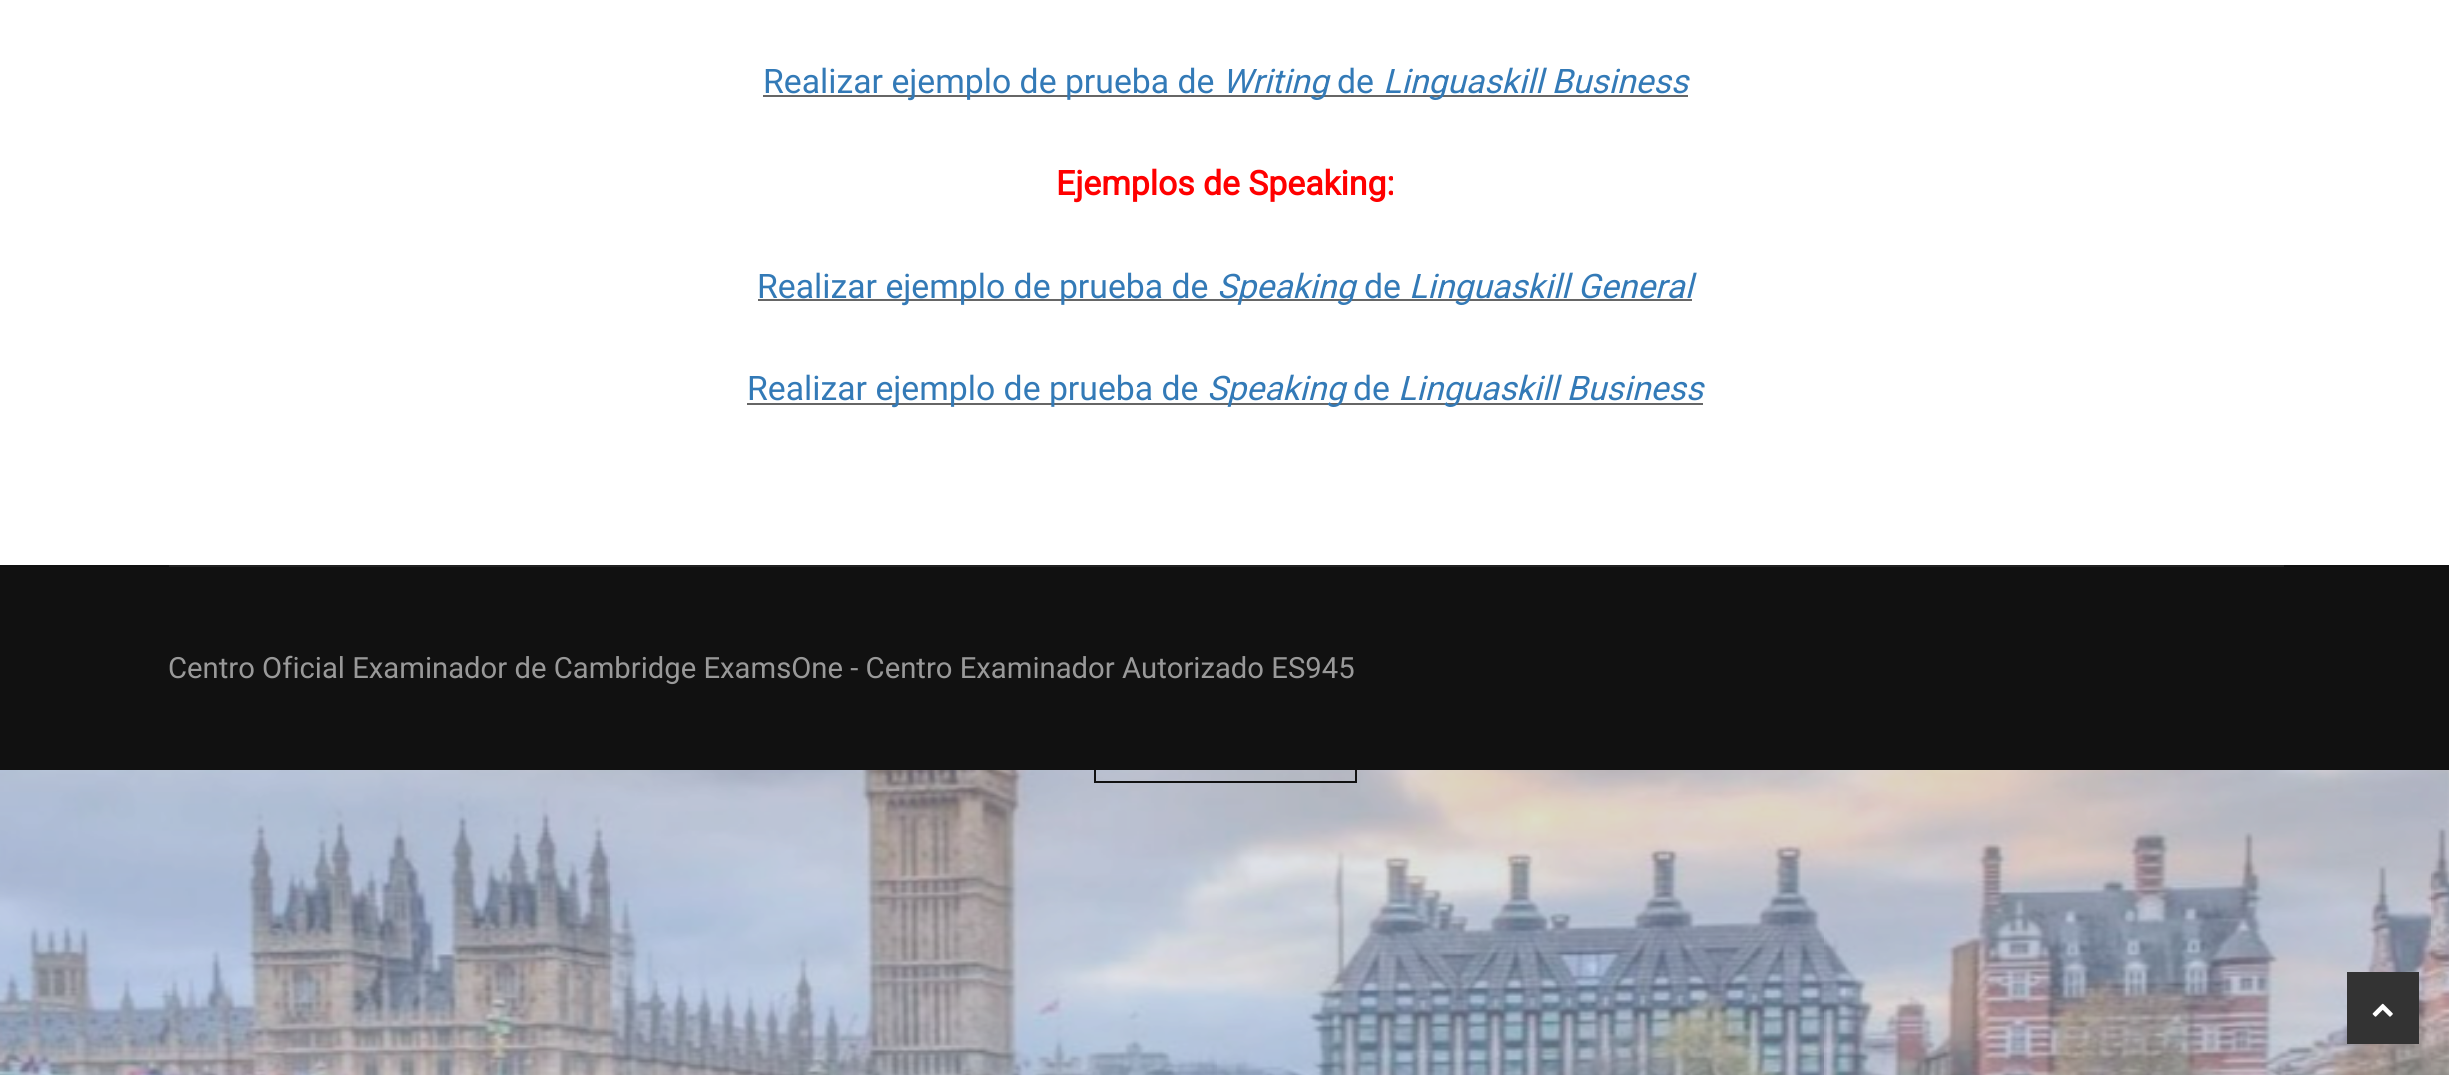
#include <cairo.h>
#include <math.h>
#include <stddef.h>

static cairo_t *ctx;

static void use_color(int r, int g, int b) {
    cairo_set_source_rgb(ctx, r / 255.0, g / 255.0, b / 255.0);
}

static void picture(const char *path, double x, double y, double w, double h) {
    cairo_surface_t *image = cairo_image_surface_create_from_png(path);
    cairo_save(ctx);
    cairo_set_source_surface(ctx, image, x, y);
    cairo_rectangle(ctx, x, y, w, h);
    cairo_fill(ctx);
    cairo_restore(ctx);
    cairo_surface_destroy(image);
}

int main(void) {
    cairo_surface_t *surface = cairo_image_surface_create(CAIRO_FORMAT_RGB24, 2449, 1075);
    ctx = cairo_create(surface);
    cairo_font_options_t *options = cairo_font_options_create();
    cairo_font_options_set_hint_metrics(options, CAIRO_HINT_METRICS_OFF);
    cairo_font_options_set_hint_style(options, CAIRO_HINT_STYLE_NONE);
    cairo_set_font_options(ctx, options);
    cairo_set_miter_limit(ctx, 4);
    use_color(255, 255, 255);
    cairo_paint(ctx);
    use_color(102, 102, 102);
    cairo_rectangle(ctx, 763, 95, 567, 2);
    cairo_fill(ctx);
    cairo_select_font_face(ctx, "Roboto", CAIRO_FONT_SLANT_NORMAL, CAIRO_FONT_WEIGHT_NORMAL);
    cairo_set_font_size(ctx, 33.75);
    use_color(51, 122, 183);
    cairo_move_to(ctx, 763, 93);
    cairo_show_text(ctx, "Realizar ejemplo de prueba de");
    cairo_select_font_face(ctx, "Roboto", CAIRO_FONT_SLANT_ITALIC, CAIRO_FONT_WEIGHT_NORMAL);
    cairo_move_to(ctx, 1222, 93);
    cairo_show_text(ctx, "Writing");
    cairo_select_font_face(ctx, "Roboto", CAIRO_FONT_SLANT_NORMAL, CAIRO_FONT_WEIGHT_NORMAL);
    cairo_move_to(ctx, 1337, 93);
    cairo_show_text(ctx, "de");
    use_color(102, 102, 102);
    cairo_rectangle(ctx, 1330, 95, 214, 2);
    cairo_fill(ctx);
    cairo_select_font_face(ctx, "Roboto", CAIRO_FONT_SLANT_ITALIC, CAIRO_FONT_WEIGHT_NORMAL);
    use_color(51, 122, 183);
    cairo_move_to(ctx, 1383, 93);
    cairo_show_text(ctx, "Linguaskill Business");
    use_color(102, 102, 102);
    cairo_rectangle(ctx, 1544, 95, 144, 2);
    cairo_fill(ctx);
    cairo_select_font_face(ctx, "Roboto", CAIRO_FONT_SLANT_NORMAL, CAIRO_FONT_WEIGHT_BOLD);
    use_color(255, 0, 0);
    cairo_move_to(ctx, 1056, 195);
    cairo_show_text(ctx, "Ejemplos de Speaking:");
    use_color(102, 102, 102);
    cairo_rectangle(ctx, 758, 299, 597, 2);
    cairo_fill(ctx);
    cairo_select_font_face(ctx, "Roboto", CAIRO_FONT_SLANT_NORMAL, CAIRO_FONT_WEIGHT_NORMAL);
    use_color(51, 122, 183);
    cairo_move_to(ctx, 757, 298);
    cairo_show_text(ctx, "Realizar ejemplo de prueba de");
    cairo_select_font_face(ctx, "Roboto", CAIRO_FONT_SLANT_ITALIC, CAIRO_FONT_WEIGHT_NORMAL);
    cairo_move_to(ctx, 1217, 298);
    cairo_show_text(ctx, "Speaking");
    cairo_select_font_face(ctx, "Roboto", CAIRO_FONT_SLANT_NORMAL, CAIRO_FONT_WEIGHT_NORMAL);
    cairo_move_to(ctx, 1364, 298);
    cairo_show_text(ctx, "de");
    use_color(102, 102, 102);
    cairo_rectangle(ctx, 1355, 299, 213, 2);
    cairo_fill(ctx);
    cairo_select_font_face(ctx, "Roboto", CAIRO_FONT_SLANT_ITALIC, CAIRO_FONT_WEIGHT_NORMAL);
    use_color(51, 122, 183);
    cairo_move_to(ctx, 1409, 298);
    cairo_show_text(ctx, "Linguaskill General");
    use_color(102, 102, 102);
    cairo_rectangle(ctx, 1568, 299, 124, 2);
    cairo_fill(ctx);
    cairo_rectangle(ctx, 747, 403, 599, 2);
    cairo_fill(ctx);
    cairo_select_font_face(ctx, "Roboto", CAIRO_FONT_SLANT_NORMAL, CAIRO_FONT_WEIGHT_NORMAL);
    use_color(51, 122, 183);
    cairo_move_to(ctx, 747, 400);
    cairo_show_text(ctx, "Realizar ejemplo de prueba de");
    cairo_select_font_face(ctx, "Roboto", CAIRO_FONT_SLANT_ITALIC, CAIRO_FONT_WEIGHT_NORMAL);
    cairo_move_to(ctx, 1207, 400);
    cairo_show_text(ctx, "Speaking");
    cairo_select_font_face(ctx, "Roboto", CAIRO_FONT_SLANT_NORMAL, CAIRO_FONT_WEIGHT_NORMAL);
    cairo_move_to(ctx, 1353, 400);
    cairo_show_text(ctx, "de");
    use_color(102, 102, 102);
    cairo_rectangle(ctx, 1346, 403, 213, 2);
    cairo_fill(ctx);
    cairo_select_font_face(ctx, "Roboto", CAIRO_FONT_SLANT_ITALIC, CAIRO_FONT_WEIGHT_NORMAL);
    use_color(51, 122, 183);
    cairo_move_to(ctx, 1398, 400);
    cairo_show_text(ctx, "Linguaskill Business");
    use_color(102, 102, 102);
    cairo_rectangle(ctx, 1559, 403, 144, 2);
    cairo_fill(ctx);
    picture("img1.png", 0, 770, 2449, 305);
    cairo_rectangle(ctx, 1095, 672, 261, 110);
    use_color(17, 17, 17);
    cairo_stroke(ctx);
    cairo_rectangle(ctx, 0, 565, 2449, 205);
    cairo_fill(ctx);
    use_color(34, 34, 34);
    cairo_rectangle(ctx, 169, 565, 2115, 2);
    cairo_fill(ctx);
    cairo_select_font_face(ctx, "Roboto", CAIRO_FONT_SLANT_NORMAL, CAIRO_FONT_WEIGHT_NORMAL);
    cairo_set_font_size(ctx, 29.25);
    use_color(153, 153, 153);
    cairo_move_to(ctx, 168, 678);
    cairo_show_text(ctx, "Centro Oficial Examinador de Cambridge ExamsOne - Centro Examinador Autorizado ES945");
    use_color(51, 51, 51);
    cairo_rectangle(ctx, 2347, 972, 72, 72);
    cairo_fill(ctx);
    picture("img2.png", 2372, 1003, 21, 14);
    cairo_surface_write_to_png(surface, "result.png");
    cairo_font_options_destroy(options);
    cairo_destroy(ctx);
    cairo_surface_destroy(surface);
    return 0;
}
